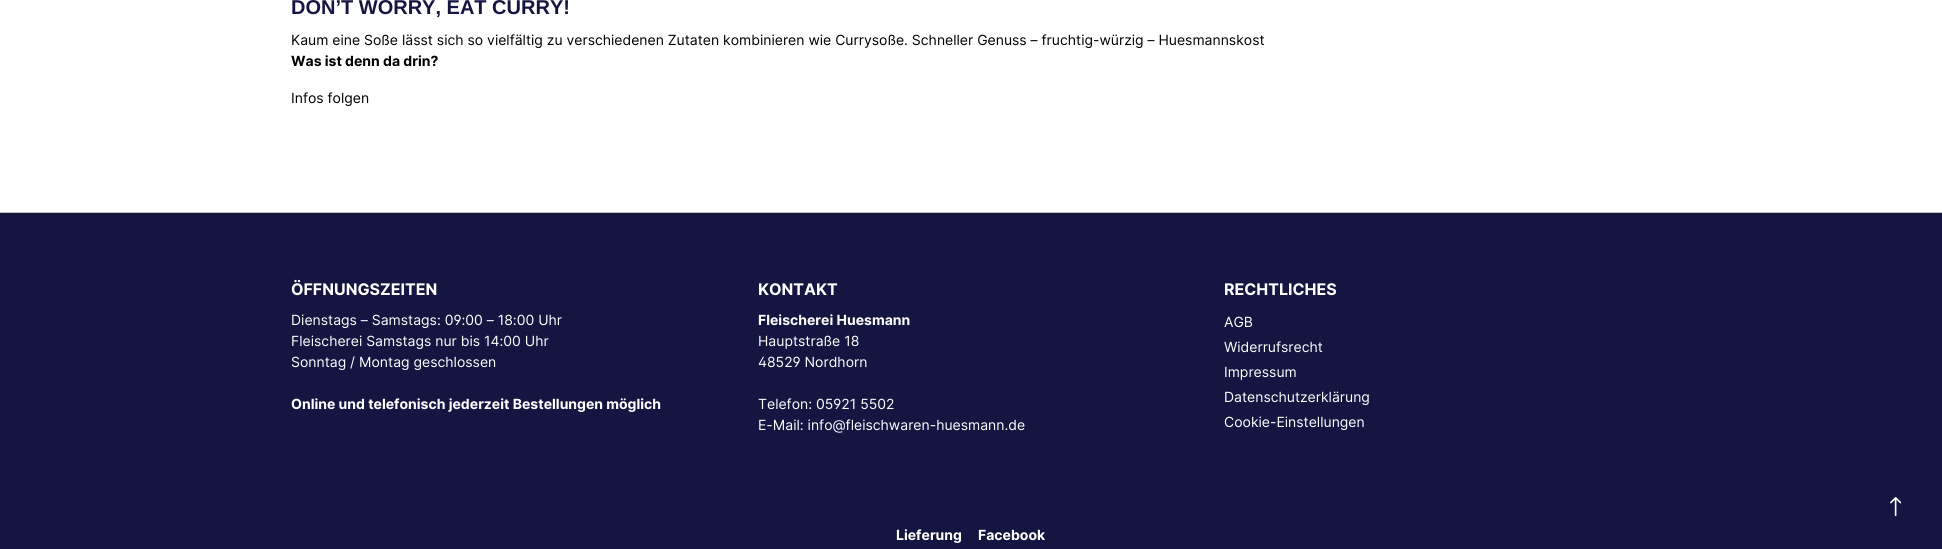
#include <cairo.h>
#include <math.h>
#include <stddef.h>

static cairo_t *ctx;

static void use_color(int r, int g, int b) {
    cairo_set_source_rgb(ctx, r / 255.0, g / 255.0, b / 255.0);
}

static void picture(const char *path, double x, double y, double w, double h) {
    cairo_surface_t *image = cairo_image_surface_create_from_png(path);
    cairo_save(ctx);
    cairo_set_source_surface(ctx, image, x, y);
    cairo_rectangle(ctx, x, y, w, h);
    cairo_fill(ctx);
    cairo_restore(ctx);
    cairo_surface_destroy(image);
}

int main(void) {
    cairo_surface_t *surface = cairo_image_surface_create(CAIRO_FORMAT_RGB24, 1942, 549);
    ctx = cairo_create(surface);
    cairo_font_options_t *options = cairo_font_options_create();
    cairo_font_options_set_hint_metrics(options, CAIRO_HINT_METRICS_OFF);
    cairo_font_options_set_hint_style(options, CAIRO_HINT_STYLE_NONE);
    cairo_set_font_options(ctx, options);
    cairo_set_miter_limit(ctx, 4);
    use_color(255, 255, 255);
    cairo_paint(ctx);
    cairo_select_font_face(ctx, "Liberation Sans", CAIRO_FONT_SLANT_NORMAL, CAIRO_FONT_WEIGHT_BOLD);
    cairo_set_font_size(ctx, 20);
    use_color(20, 21, 64);
    cairo_move_to(ctx, 291, 14);
    cairo_show_text(ctx, "DON’T WORRY, EAT CURRY!");
    cairo_select_font_face(ctx, "Inter", CAIRO_FONT_SLANT_NORMAL, CAIRO_FONT_WEIGHT_NORMAL);
    cairo_set_font_size(ctx, 14);
    use_color(0, 0, 0);
    cairo_move_to(ctx, 291, 45);
    cairo_show_text(ctx, "Kaum eine Soße lässt sich so vielfältig zu verschiedenen Zutaten kombinieren wie Currysoße. Schneller Genuss – fruchtig-würzig – Huesmannskost");
    cairo_select_font_face(ctx, "Inter", CAIRO_FONT_SLANT_NORMAL, CAIRO_FONT_WEIGHT_BOLD);
    cairo_move_to(ctx, 291, 66);
    cairo_show_text(ctx, "Was ist denn da drin?");
    cairo_select_font_face(ctx, "Inter", CAIRO_FONT_SLANT_NORMAL, CAIRO_FONT_WEIGHT_NORMAL);
    cairo_move_to(ctx, 291, 103);
    cairo_show_text(ctx, "Infos folgen");
    use_color(20, 21, 64);
    cairo_rectangle(ctx, 0, 213, 1942, 336);
    cairo_fill(ctx);
    use_color(188, 193, 199);
    cairo_rectangle(ctx, 0, 212, 1942, 1);
    cairo_fill(ctx);
    cairo_select_font_face(ctx, "Inter", CAIRO_FONT_SLANT_NORMAL, CAIRO_FONT_WEIGHT_BOLD);
    cairo_set_font_size(ctx, 16);
    use_color(255, 255, 255);
    cairo_move_to(ctx, 291, 295);
    cairo_show_text(ctx, "ÖFFNUNGSZEITEN");
    cairo_select_font_face(ctx, "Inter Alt", CAIRO_FONT_SLANT_NORMAL, CAIRO_FONT_WEIGHT_NORMAL);
    cairo_set_font_size(ctx, 14);
    cairo_move_to(ctx, 291, 325);
    cairo_show_text(ctx, "Dienstags – Samstags: 09:00 – 18:00 Uhr");
    cairo_select_font_face(ctx, "Inter", CAIRO_FONT_SLANT_NORMAL, CAIRO_FONT_WEIGHT_NORMAL);
    cairo_move_to(ctx, 291, 346);
    cairo_show_text(ctx, "Fleischerei Samstags nur bis 14:00 Uhr");
    cairo_move_to(ctx, 291, 367);
    cairo_show_text(ctx, "Sonntag / Montag geschlossen");
    cairo_select_font_face(ctx, "Inter", CAIRO_FONT_SLANT_NORMAL, CAIRO_FONT_WEIGHT_BOLD);
    cairo_move_to(ctx, 291, 409);
    cairo_show_text(ctx, "Online und telefonisch jederzeit Bestellungen möglich");
    cairo_set_font_size(ctx, 16);
    cairo_move_to(ctx, 758, 295);
    cairo_show_text(ctx, "KONTAKT");
    cairo_set_font_size(ctx, 14);
    cairo_move_to(ctx, 758, 325);
    cairo_show_text(ctx, "Fleischerei Huesmann");
    cairo_select_font_face(ctx, "Inter", CAIRO_FONT_SLANT_NORMAL, CAIRO_FONT_WEIGHT_NORMAL);
    cairo_move_to(ctx, 758, 346);
    cairo_show_text(ctx, "Hauptstraße 18");
    cairo_select_font_face(ctx, "Inter Alt", CAIRO_FONT_SLANT_NORMAL, CAIRO_FONT_WEIGHT_NORMAL);
    cairo_move_to(ctx, 758, 367);
    cairo_show_text(ctx, "48529 Nordhorn");
    cairo_move_to(ctx, 758, 409);
    cairo_show_text(ctx, "Telefon: 05921 5502");
    cairo_select_font_face(ctx, "Inter", CAIRO_FONT_SLANT_NORMAL, CAIRO_FONT_WEIGHT_NORMAL);
    cairo_move_to(ctx, 758, 430);
    cairo_show_text(ctx, "E-Mail: info@fleischwaren-huesmann.de");
    cairo_select_font_face(ctx, "Inter", CAIRO_FONT_SLANT_NORMAL, CAIRO_FONT_WEIGHT_BOLD);
    cairo_set_font_size(ctx, 16);
    cairo_move_to(ctx, 1224, 295);
    cairo_show_text(ctx, "RECHTLICHES");
    cairo_select_font_face(ctx, "Inter", CAIRO_FONT_SLANT_NORMAL, CAIRO_FONT_WEIGHT_NORMAL);
    cairo_set_font_size(ctx, 14);
    cairo_move_to(ctx, 1224, 327);
    cairo_show_text(ctx, "AGB");
    cairo_move_to(ctx, 1224, 352);
    cairo_show_text(ctx, "Widerrufsrecht");
    cairo_move_to(ctx, 1224, 377);
    cairo_show_text(ctx, "Impressum");
    cairo_move_to(ctx, 1224, 402);
    cairo_show_text(ctx, "Datenschutzerklärung");
    cairo_move_to(ctx, 1224, 427);
    cairo_show_text(ctx, "Cookie-Einstellungen");
    cairo_select_font_face(ctx, "Inter", CAIRO_FONT_SLANT_NORMAL, CAIRO_FONT_WEIGHT_BOLD);
    cairo_move_to(ctx, 896, 540);
    cairo_show_text(ctx, "Lieferung");
    cairo_move_to(ctx, 978, 540);
    cairo_show_text(ctx, "Facebook");
    picture("img1.png", 1890, 497, 12, 19);
    cairo_surface_write_to_png(surface, "result.png");
    cairo_font_options_destroy(options);
    cairo_destroy(ctx);
    cairo_surface_destroy(surface);
    return 0;
}
